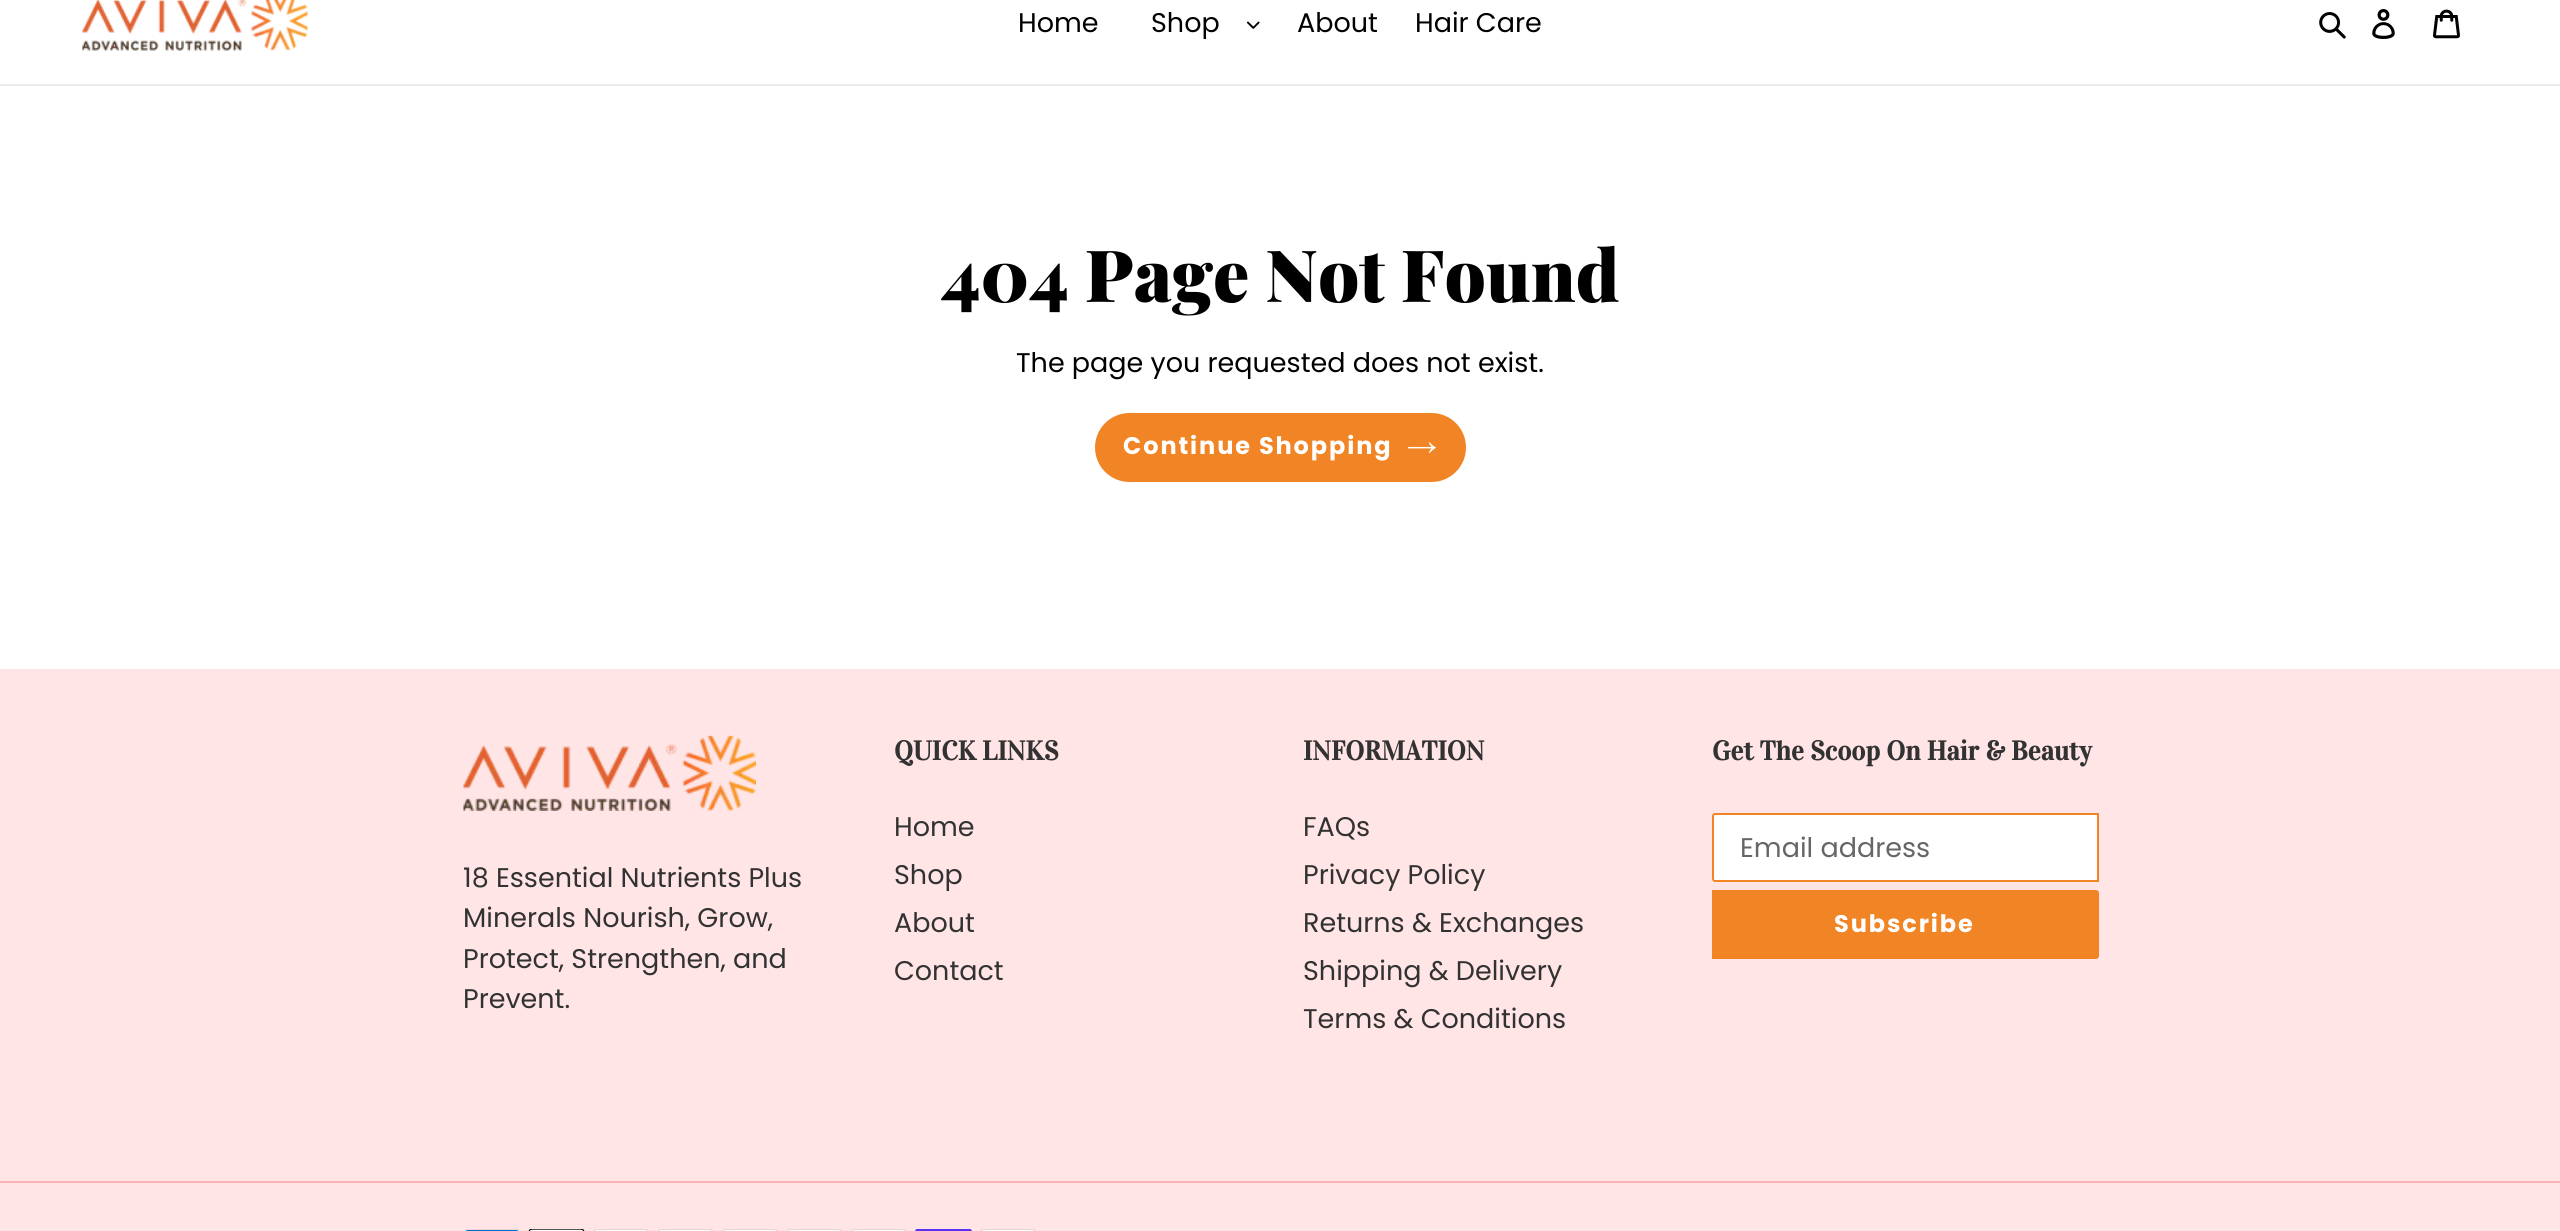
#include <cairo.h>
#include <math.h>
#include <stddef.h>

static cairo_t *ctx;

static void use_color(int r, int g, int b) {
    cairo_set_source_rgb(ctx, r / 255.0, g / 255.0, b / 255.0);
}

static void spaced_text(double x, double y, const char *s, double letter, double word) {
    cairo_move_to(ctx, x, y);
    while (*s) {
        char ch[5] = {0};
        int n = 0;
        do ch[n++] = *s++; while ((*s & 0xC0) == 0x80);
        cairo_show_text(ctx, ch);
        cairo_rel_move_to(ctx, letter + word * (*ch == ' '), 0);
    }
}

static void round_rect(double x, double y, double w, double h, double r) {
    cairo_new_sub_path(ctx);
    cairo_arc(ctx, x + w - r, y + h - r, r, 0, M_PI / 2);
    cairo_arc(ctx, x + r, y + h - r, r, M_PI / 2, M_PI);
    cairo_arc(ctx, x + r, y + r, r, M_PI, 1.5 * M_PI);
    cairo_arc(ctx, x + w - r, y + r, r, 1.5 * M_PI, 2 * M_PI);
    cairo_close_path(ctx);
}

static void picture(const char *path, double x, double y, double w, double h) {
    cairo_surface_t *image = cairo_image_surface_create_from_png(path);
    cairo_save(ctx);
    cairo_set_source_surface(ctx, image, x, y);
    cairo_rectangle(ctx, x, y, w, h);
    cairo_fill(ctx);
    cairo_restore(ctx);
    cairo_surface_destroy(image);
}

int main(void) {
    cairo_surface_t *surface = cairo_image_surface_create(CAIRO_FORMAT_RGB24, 2560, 1231);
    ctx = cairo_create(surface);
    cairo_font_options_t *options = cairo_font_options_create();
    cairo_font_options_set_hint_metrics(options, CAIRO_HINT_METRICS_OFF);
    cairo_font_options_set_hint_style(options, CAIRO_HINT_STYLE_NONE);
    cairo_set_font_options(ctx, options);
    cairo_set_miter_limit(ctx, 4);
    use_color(255, 255, 255);
    cairo_paint(ctx);
    use_color(235, 235, 235);
    cairo_rectangle(ctx, 0, 84, 2560, 2);
    cairo_fill(ctx);
    picture("img1.png", 82, 0, 226, 51);
    cairo_select_font_face(ctx, "Poppins", CAIRO_FONT_SLANT_NORMAL, CAIRO_FONT_WEIGHT_NORMAL);
    cairo_set_font_size(ctx, 27);
    use_color(0, 0, 0);
    cairo_move_to(ctx, 1018, 32);
    cairo_show_text(ctx, "Home");
    cairo_move_to(ctx, 1151, 32);
    cairo_show_text(ctx, "Shop");
    picture("img2.png", 1247, 21, 13, 8);
    cairo_move_to(ctx, 1297, 32);
    cairo_show_text(ctx, "About");
    cairo_move_to(ctx, 1415, 32);
    cairo_show_text(ctx, "Hair Care");
    picture("img3.png", 2319, 12, 27, 27);
    picture("img4.png", 2372, 9, 23, 30);
    picture("img5.png", 2433, 9, 27, 30);
    cairo_select_font_face(ctx, "Playfair Display Black", CAIRO_FONT_SLANT_NORMAL, CAIRO_FONT_WEIGHT_NORMAL);
    cairo_set_font_size(ctx, 72);
    cairo_move_to(ctx, 941, 302);
    cairo_show_text(ctx, "404 Page Not Found");
    cairo_select_font_face(ctx, "Poppins", CAIRO_FONT_SLANT_NORMAL, CAIRO_FONT_WEIGHT_NORMAL);
    cairo_set_font_size(ctx, 27);
    cairo_move_to(ctx, 1016, 372);
    cairo_show_text(ctx, "The page you requested does not exist.");
    use_color(241, 133, 38);
    round_rect(1095, 413, 371, 69, 34.5);
    cairo_fill(ctx);
    cairo_select_font_face(ctx, "Poppins", CAIRO_FONT_SLANT_NORMAL, CAIRO_FONT_WEIGHT_BOLD);
    cairo_set_font_size(ctx, 24);
    use_color(255, 255, 255);
    spaced_text(1123, 454, "Continue Shopping", 1.9, 0);
    picture("img6.png", 1408, 442, 28, 11);
    use_color(255, 229, 230);
    cairo_rectangle(ctx, 0, 669, 2560, 562);
    cairo_fill(ctx);
    picture("img7.png", 463, 735, 293, 76);
    cairo_select_font_face(ctx, "Poppins", CAIRO_FONT_SLANT_NORMAL, CAIRO_FONT_WEIGHT_NORMAL);
    cairo_set_font_size(ctx, 27);
    use_color(51, 50, 50);
    cairo_move_to(ctx, 463, 887);
    cairo_show_text(ctx, "18 Essential Nutrients Plus");
    cairo_move_to(ctx, 463, 927);
    cairo_show_text(ctx, "Minerals Nourish, Grow,");
    cairo_move_to(ctx, 463, 968);
    cairo_show_text(ctx, "Protect, Strengthen, and");
    cairo_move_to(ctx, 463, 1008);
    cairo_show_text(ctx, "Prevent.");
    cairo_select_font_face(ctx, "Vidaloka", CAIRO_FONT_SLANT_NORMAL, CAIRO_FONT_WEIGHT_BOLD);
    cairo_move_to(ctx, 894, 760);
    cairo_show_text(ctx, "QUICK LINKS");
    cairo_select_font_face(ctx, "Poppins", CAIRO_FONT_SLANT_NORMAL, CAIRO_FONT_WEIGHT_NORMAL);
    cairo_move_to(ctx, 894, 836);
    cairo_show_text(ctx, "Home");
    cairo_move_to(ctx, 894, 884);
    cairo_show_text(ctx, "Shop");
    cairo_move_to(ctx, 894, 932);
    cairo_show_text(ctx, "About");
    cairo_move_to(ctx, 894, 980);
    cairo_show_text(ctx, "Contact");
    cairo_select_font_face(ctx, "Vidaloka", CAIRO_FONT_SLANT_NORMAL, CAIRO_FONT_WEIGHT_BOLD);
    cairo_move_to(ctx, 1303, 760);
    cairo_show_text(ctx, "INFORMATION");
    cairo_select_font_face(ctx, "Poppins", CAIRO_FONT_SLANT_NORMAL, CAIRO_FONT_WEIGHT_NORMAL);
    cairo_move_to(ctx, 1303, 836);
    cairo_show_text(ctx, "FAQs");
    cairo_move_to(ctx, 1303, 884);
    cairo_show_text(ctx, "Privacy Policy");
    cairo_move_to(ctx, 1303, 932);
    cairo_show_text(ctx, "Returns & Exchanges");
    cairo_move_to(ctx, 1303, 980);
    cairo_show_text(ctx, "Shipping & Delivery");
    cairo_move_to(ctx, 1303, 1028);
    cairo_show_text(ctx, "Terms & Conditions");
    cairo_select_font_face(ctx, "Vidaloka", CAIRO_FONT_SLANT_NORMAL, CAIRO_FONT_WEIGHT_BOLD);
    cairo_move_to(ctx, 1712, 760);
    cairo_show_text(ctx, "Get The Scoop On Hair & Beauty");
    use_color(255, 255, 255);
    cairo_new_path(ctx);
    cairo_move_to(ctx, 1715, 814);
    cairo_line_to(ctx, 2098, 814);
    cairo_line_to(ctx, 2098, 881);
    cairo_line_to(ctx, 1715, 881);
    cairo_curve_to(ctx, 1714, 881, 1713, 880, 1713, 879);
    cairo_line_to(ctx, 1713, 816);
    cairo_curve_to(ctx, 1713, 815, 1714, 814, 1715, 814);
    cairo_close_path(ctx);
    cairo_fill_preserve(ctx);
    use_color(241, 133, 38);
    cairo_stroke(ctx);
    cairo_select_font_face(ctx, "Poppins", CAIRO_FONT_SLANT_NORMAL, CAIRO_FONT_WEIGHT_NORMAL);
    use_color(102, 102, 102);
    cairo_move_to(ctx, 1740, 857);
    cairo_show_text(ctx, "Email address");
    use_color(241, 133, 38);
    cairo_new_path(ctx);
    cairo_move_to(ctx, 1712, 890);
    cairo_line_to(ctx, 2096, 890);
    cairo_curve_to(ctx, 2097.5, 890, 2099, 891.5, 2099, 893);
    cairo_line_to(ctx, 2099, 956);
    cairo_curve_to(ctx, 2099, 957.5, 2097.5, 959, 2096, 959);
    cairo_line_to(ctx, 1712, 959);
    cairo_close_path(ctx);
    cairo_fill(ctx);
    cairo_select_font_face(ctx, "Poppins", CAIRO_FONT_SLANT_NORMAL, CAIRO_FONT_WEIGHT_BOLD);
    cairo_set_font_size(ctx, 24);
    use_color(255, 255, 255);
    spaced_text(1834, 932, "Subscribe", 1.9, 0);
    use_color(255, 178, 181);
    cairo_rectangle(ctx, 0, 1181, 2560, 2);
    cairo_fill(ctx);
    picture("img8.png", 464, 1229, 56, 2);
    picture("img9.png", 528, 1229, 57, 2);
    picture("img10.png", 593, 1229, 56, 2);
    picture("img11.png", 658, 1229, 55, 2);
    picture("img10.png", 722, 1229, 56, 2);
    picture("img11.png", 787, 1229, 55, 2);
    picture("img10.png", 851, 1229, 56, 2);
    picture("img12.png", 915, 1229, 57, 2);
    picture("img10.png", 980, 1229, 56, 2);
    cairo_surface_write_to_png(surface, "result.png");
    cairo_font_options_destroy(options);
    cairo_destroy(ctx);
    cairo_surface_destroy(surface);
    return 0;
}
